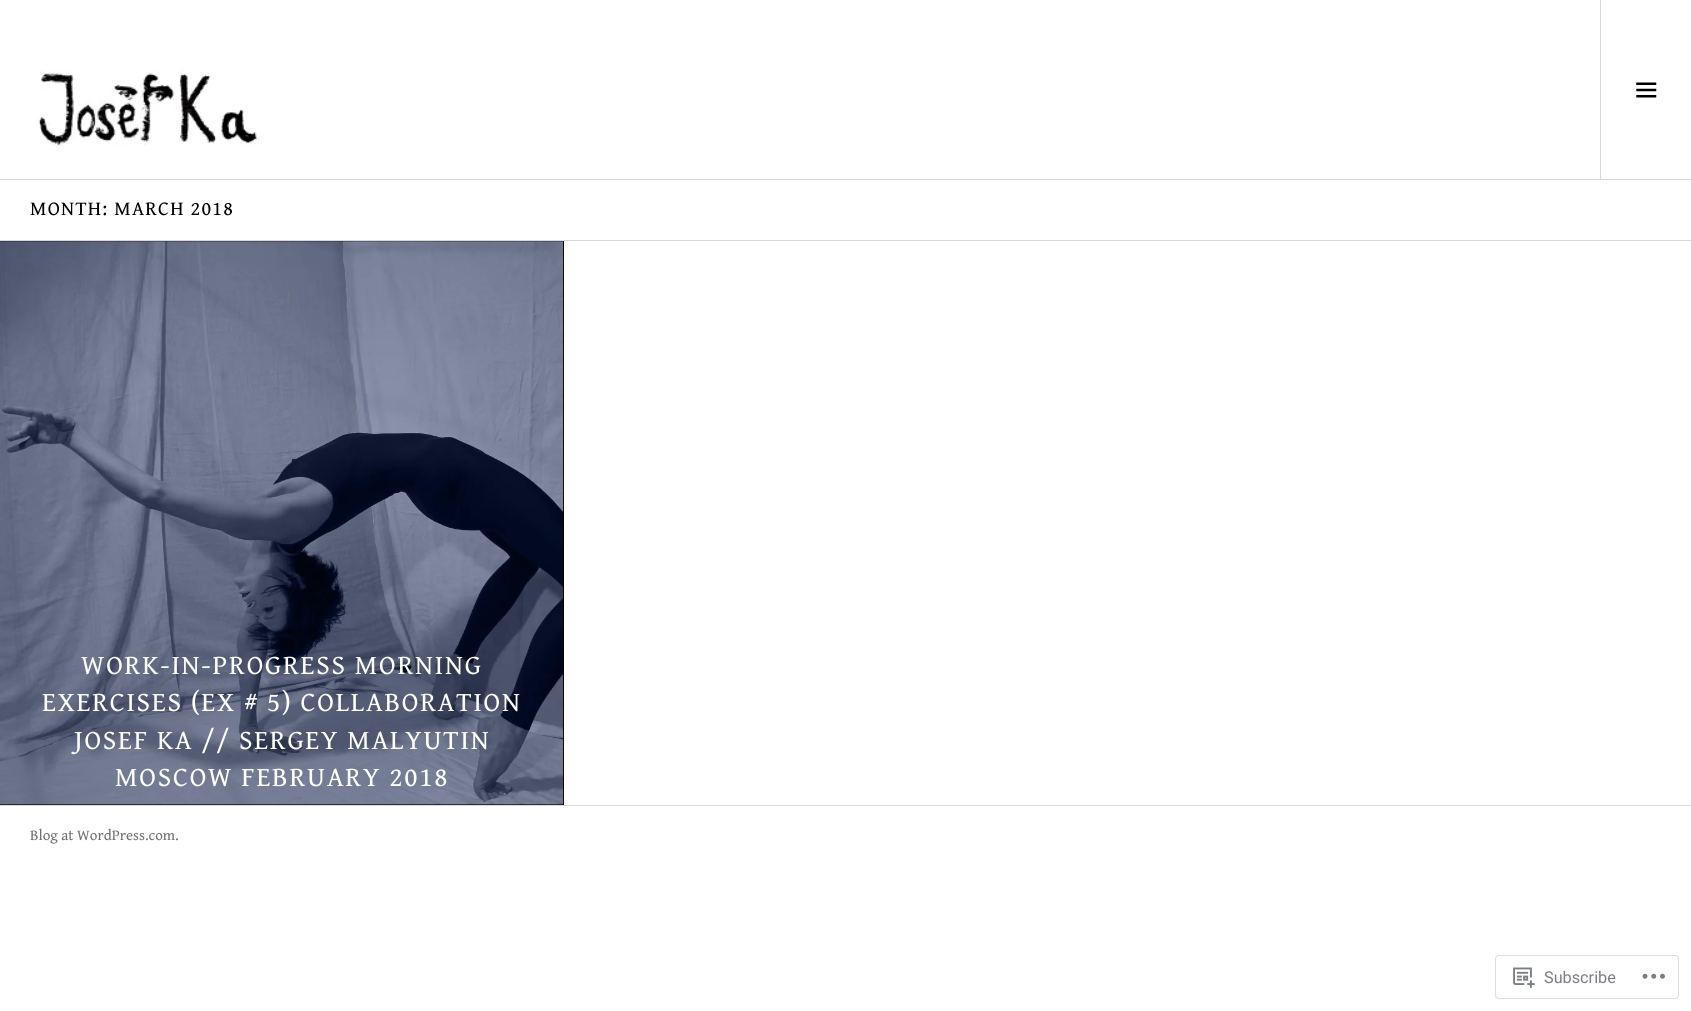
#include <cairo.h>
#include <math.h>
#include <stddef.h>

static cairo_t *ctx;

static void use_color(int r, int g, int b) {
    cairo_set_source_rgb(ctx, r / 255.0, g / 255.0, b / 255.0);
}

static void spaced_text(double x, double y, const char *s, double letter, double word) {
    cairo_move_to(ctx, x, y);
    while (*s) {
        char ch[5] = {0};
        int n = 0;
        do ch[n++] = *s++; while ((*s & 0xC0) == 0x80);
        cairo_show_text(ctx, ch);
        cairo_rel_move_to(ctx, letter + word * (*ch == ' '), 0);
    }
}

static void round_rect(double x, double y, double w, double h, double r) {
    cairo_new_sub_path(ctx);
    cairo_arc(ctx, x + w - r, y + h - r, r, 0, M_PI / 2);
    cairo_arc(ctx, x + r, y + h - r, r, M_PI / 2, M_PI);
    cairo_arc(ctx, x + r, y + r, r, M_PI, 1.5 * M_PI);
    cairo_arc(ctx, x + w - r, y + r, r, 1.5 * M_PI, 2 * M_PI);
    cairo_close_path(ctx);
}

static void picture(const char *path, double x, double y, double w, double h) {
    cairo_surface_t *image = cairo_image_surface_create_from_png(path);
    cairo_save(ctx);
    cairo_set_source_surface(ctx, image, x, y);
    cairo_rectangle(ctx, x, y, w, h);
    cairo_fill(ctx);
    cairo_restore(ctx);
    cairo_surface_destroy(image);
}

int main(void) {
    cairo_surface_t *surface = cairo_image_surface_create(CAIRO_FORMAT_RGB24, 1691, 1011);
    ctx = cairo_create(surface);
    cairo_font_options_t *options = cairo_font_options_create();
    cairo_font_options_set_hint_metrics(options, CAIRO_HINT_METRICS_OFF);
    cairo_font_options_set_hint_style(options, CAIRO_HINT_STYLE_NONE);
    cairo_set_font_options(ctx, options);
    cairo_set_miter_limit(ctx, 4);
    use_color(255, 255, 255);
    cairo_paint(ctx);
    use_color(216, 216, 216);
    cairo_rectangle(ctx, 0, 179, 1691, 1);
    cairo_fill(ctx);
    picture("img1.png", 36, 70, 224, 76);
    cairo_rectangle(ctx, 1600, 0, 1, 179);
    cairo_fill(ctx);
    picture("img2.png", 1636, 82, 21, 16);
    cairo_rectangle(ctx, 0, 240, 1691, 1);
    cairo_fill(ctx);
    cairo_select_font_face(ctx, "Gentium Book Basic", CAIRO_FONT_SLANT_NORMAL, CAIRO_FONT_WEIGHT_NORMAL);
    cairo_set_font_size(ctx, 20);
    use_color(0, 0, 0);
    spaced_text(30, 215, "MONTH: MARCH 2018", 1.25, 0);
    cairo_rectangle(ctx, 0, 241, 564, 564);
    cairo_fill(ctx);
    picture("img3.png", 0, 241, 564, 564);
    cairo_set_font_size(ctx, 27.5);
    use_color(255, 255, 255);
    spaced_text(81, 674, "WORK-IN-PROGRESS MORNING", 1.75, 0);
    spaced_text(42, 711, "EXERCISES (EX # 5) COLLABORATION", 1.75, 0);
    spaced_text(74, 749, "JOSEF KA // SERGEY MALYUTIN", 1.75, 0);
    spaced_text(115, 786, "MOSCOW FEBRUARY 2018", 1.75, 0);
    use_color(216, 216, 216);
    cairo_rectangle(ctx, 0, 805, 1691, 1);
    cairo_fill(ctx);
    cairo_set_font_size(ctx, 15);
    use_color(112, 112, 112);
    cairo_move_to(ctx, 30, 840);
    cairo_show_text(ctx, "Blog at WordPress.com.");
    round_rect(1495.5, 955.5, 183, 43, 3.5);
    use_color(221, 221, 223);
    cairo_set_line_width(ctx, 1);
    cairo_stroke(ctx);
    picture("img4.png", 1513, 967, 22, 21);
    cairo_select_font_face(ctx, "Roboto", CAIRO_FONT_SLANT_NORMAL, CAIRO_FONT_WEIGHT_NORMAL);
    cairo_set_font_size(ctx, 16.25);
    use_color(123, 127, 133);
    cairo_move_to(ctx, 1544, 983);
    cairo_show_text(ctx, "Subscribe");
    picture("img5.png", 1642, 973, 23, 6);
    cairo_surface_write_to_png(surface, "result.png");
    cairo_font_options_destroy(options);
    cairo_destroy(ctx);
    cairo_surface_destroy(surface);
    return 0;
}
